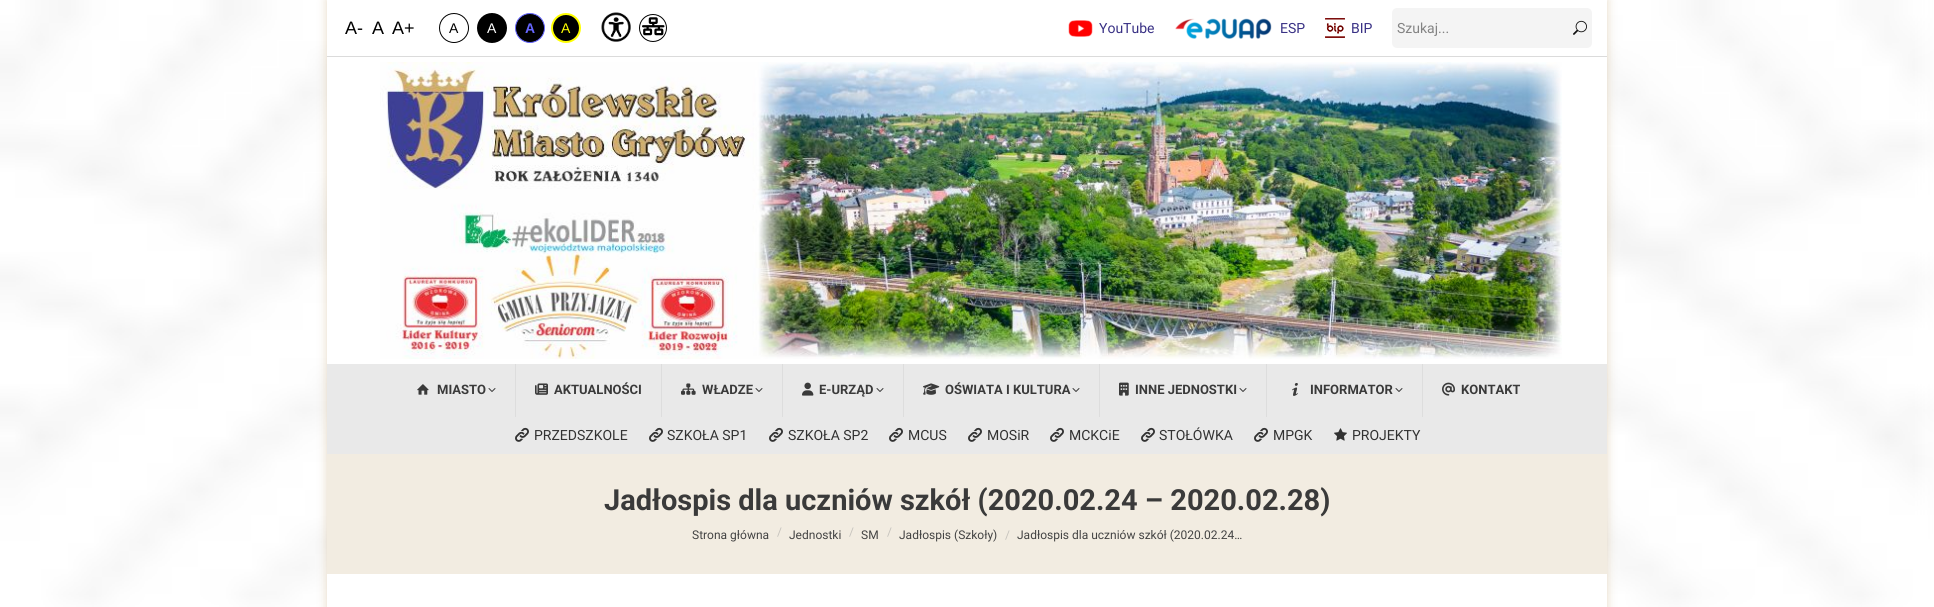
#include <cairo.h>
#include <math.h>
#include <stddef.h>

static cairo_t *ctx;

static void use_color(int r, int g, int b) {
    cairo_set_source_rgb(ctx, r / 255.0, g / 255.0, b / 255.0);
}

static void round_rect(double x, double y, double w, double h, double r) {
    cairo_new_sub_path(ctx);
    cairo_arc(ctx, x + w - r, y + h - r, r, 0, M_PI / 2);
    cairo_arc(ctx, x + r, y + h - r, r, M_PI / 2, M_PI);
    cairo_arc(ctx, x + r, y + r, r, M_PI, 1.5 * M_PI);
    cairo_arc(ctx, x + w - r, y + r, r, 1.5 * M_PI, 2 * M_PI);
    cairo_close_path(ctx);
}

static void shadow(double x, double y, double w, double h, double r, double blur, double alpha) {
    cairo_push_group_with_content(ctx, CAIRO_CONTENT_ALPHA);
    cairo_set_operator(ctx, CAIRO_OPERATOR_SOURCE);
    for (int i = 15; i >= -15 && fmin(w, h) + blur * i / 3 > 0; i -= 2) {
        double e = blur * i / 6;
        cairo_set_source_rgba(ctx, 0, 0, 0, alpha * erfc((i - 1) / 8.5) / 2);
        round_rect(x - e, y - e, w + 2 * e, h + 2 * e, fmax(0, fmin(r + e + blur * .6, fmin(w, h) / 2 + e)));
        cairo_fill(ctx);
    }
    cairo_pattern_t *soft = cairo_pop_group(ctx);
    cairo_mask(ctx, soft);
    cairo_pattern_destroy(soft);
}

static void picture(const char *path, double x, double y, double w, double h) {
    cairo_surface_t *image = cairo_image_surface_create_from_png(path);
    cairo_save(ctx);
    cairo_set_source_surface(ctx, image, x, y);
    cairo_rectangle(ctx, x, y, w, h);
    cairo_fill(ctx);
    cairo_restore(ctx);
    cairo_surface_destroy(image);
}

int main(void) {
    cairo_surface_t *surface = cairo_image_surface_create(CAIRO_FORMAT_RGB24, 1934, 607);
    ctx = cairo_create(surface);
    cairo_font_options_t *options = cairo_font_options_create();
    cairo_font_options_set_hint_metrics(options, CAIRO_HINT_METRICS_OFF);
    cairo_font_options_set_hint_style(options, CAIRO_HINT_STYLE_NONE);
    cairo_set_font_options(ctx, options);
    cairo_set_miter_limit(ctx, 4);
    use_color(255, 255, 255);
    cairo_paint(ctx);
    picture("img1.png", 0, 0, 1934, 607);
    use_color(190, 158, 103);
    shadow(327, 0, 1280, 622, 0, 5, 0.39);
    use_color(255, 255, 255);
    cairo_rectangle(ctx, 327, 0, 1280, 607);
    cairo_fill(ctx);
    cairo_select_font_face(ctx, "Liberation Sans", CAIRO_FONT_SLANT_NORMAL, CAIRO_FONT_WEIGHT_NORMAL);
    cairo_set_font_size(ctx, 18);
    use_color(0, 0, 0);
    cairo_move_to(ctx, 345, 34);
    cairo_show_text(ctx, "A-");
    cairo_move_to(ctx, 372, 34);
    cairo_show_text(ctx, "A");
    cairo_move_to(ctx, 392, 34);
    cairo_show_text(ctx, "A+");
    cairo_new_path(ctx);
    cairo_arc(ctx, 454, 28, 14.5, 0, 2 * M_PI);
    cairo_set_line_width(ctx, 1);
    cairo_stroke(ctx);
    cairo_set_font_size(ctx, 14);
    cairo_move_to(ctx, 449, 33);
    cairo_show_text(ctx, "A");
    cairo_new_path(ctx);
    cairo_arc(ctx, 492, 28, 14, 0, 2 * M_PI);
    cairo_fill_preserve(ctx);
    cairo_set_line_width(ctx, 2);
    cairo_stroke(ctx);
    use_color(255, 255, 255);
    cairo_move_to(ctx, 487, 33);
    cairo_show_text(ctx, "A");
    use_color(0, 0, 0);
    cairo_new_path(ctx);
    cairo_arc(ctx, 530, 28, 14.5, 0, 2 * M_PI);
    cairo_fill_preserve(ctx);
    use_color(102, 102, 255);
    cairo_set_line_width(ctx, 1);
    cairo_stroke(ctx);
    cairo_select_font_face(ctx, "Liberation Sans", CAIRO_FONT_SLANT_NORMAL, CAIRO_FONT_WEIGHT_BOLD);
    cairo_move_to(ctx, 525, 33);
    cairo_show_text(ctx, "A");
    use_color(0, 0, 0);
    cairo_new_path(ctx);
    cairo_arc(ctx, 566, 28, 14, 0, 2 * M_PI);
    cairo_fill_preserve(ctx);
    use_color(255, 255, 0);
    cairo_set_line_width(ctx, 2);
    cairo_stroke(ctx);
    cairo_select_font_face(ctx, "Liberation Sans", CAIRO_FONT_SLANT_NORMAL, CAIRO_FONT_WEIGHT_NORMAL);
    cairo_move_to(ctx, 561, 33);
    cairo_show_text(ctx, "A");
    picture("img2.png", 601, 12, 30, 30);
    cairo_arc(ctx, 653, 28, 13.5, 0, 2 * M_PI);
    use_color(0, 0, 0);
    cairo_set_line_width(ctx, 1);
    cairo_stroke(ctx);
    picture("img3.png", 642, 17, 23, 19);
    picture("img4.png", 1068, 20, 25, 17);
    cairo_select_font_face(ctx, "Roboto", CAIRO_FONT_SLANT_NORMAL, CAIRO_FONT_WEIGHT_NORMAL);
    use_color(57, 49, 133);
    cairo_move_to(ctx, 1099, 33);
    cairo_show_text(ctx, "YouTube");
    picture("img5.png", 1175, 18, 97, 21);
    cairo_move_to(ctx, 1280, 33);
    cairo_show_text(ctx, "ESP");
    picture("img6.png", 1325, 18, 20, 20);
    cairo_move_to(ctx, 1351, 33);
    cairo_show_text(ctx, "BIP");
    use_color(244, 244, 244);
    round_rect(1392, 8, 200, 40, 5);
    cairo_fill(ctx);
    use_color(131, 131, 131);
    cairo_move_to(ctx, 1397, 33);
    cairo_show_text(ctx, "Szukaj...");
    picture("img7.png", 1573, 20, 14, 15);
    use_color(219, 219, 219);
    cairo_rectangle(ctx, 327, 56, 1280, 1);
    cairo_fill(ctx);
    picture("img8.png", 380, 62, 1182, 297);
    use_color(233, 233, 233);
    cairo_rectangle(ctx, 327, 364, 1280, 90);
    cairo_fill(ctx);
    use_color(221, 221, 221);
    cairo_rectangle(ctx, 515, 364, 1, 53);
    cairo_fill(ctx);
    picture("img9.png", 417, 384, 12, 11);
    cairo_select_font_face(ctx, "Roboto", CAIRO_FONT_SLANT_NORMAL, CAIRO_FONT_WEIGHT_BOLD);
    cairo_set_font_size(ctx, 13);
    use_color(58, 58, 58);
    cairo_move_to(ctx, 437, 394);
    cairo_show_text(ctx, "MIASTO");
    picture("img10.png", 488, 388, 8, 4);
    use_color(221, 221, 221);
    cairo_rectangle(ctx, 661, 364, 1, 53);
    cairo_fill(ctx);
    picture("img11.png", 535, 383, 13, 12);
    use_color(58, 58, 58);
    cairo_move_to(ctx, 554, 394);
    cairo_show_text(ctx, "AKTUALNOŚCI");
    use_color(221, 221, 221);
    cairo_rectangle(ctx, 782, 364, 1, 53);
    cairo_fill(ctx);
    picture("img12.png", 681, 383, 15, 12);
    use_color(58, 58, 58);
    cairo_move_to(ctx, 702, 394);
    cairo_show_text(ctx, "WŁADZE");
    picture("img10.png", 755, 388, 8, 4);
    use_color(221, 221, 221);
    cairo_rectangle(ctx, 903, 364, 1, 53);
    cairo_fill(ctx);
    picture("img13.png", 802, 382, 12, 14);
    use_color(58, 58, 58);
    cairo_move_to(ctx, 819, 394);
    cairo_show_text(ctx, "E-URZĄD");
    picture("img10.png", 876, 388, 8, 4);
    use_color(221, 221, 221);
    cairo_rectangle(ctx, 1099, 364, 1, 53);
    cairo_fill(ctx);
    picture("img14.png", 923, 383, 17, 12);
    use_color(58, 58, 58);
    cairo_move_to(ctx, 945, 394);
    cairo_show_text(ctx, "OŚWIATA I KULTURA");
    picture("img10.png", 1072, 388, 8, 4);
    use_color(221, 221, 221);
    cairo_rectangle(ctx, 1266, 364, 1, 53);
    cairo_fill(ctx);
    picture("img15.png", 1119, 382, 10, 14);
    use_color(58, 58, 58);
    cairo_move_to(ctx, 1135, 394);
    cairo_show_text(ctx, "INNE JEDNOSTKI");
    picture("img10.png", 1239, 388, 8, 4);
    use_color(221, 221, 221);
    cairo_rectangle(ctx, 1422, 364, 1, 53);
    cairo_fill(ctx);
    picture("img16.png", 1292, 383, 6, 13);
    use_color(58, 58, 58);
    cairo_move_to(ctx, 1310, 394);
    cairo_show_text(ctx, "INFORMATOR");
    picture("img10.png", 1395, 388, 8, 4);
    picture("img17.png", 1442, 382, 13, 14);
    cairo_move_to(ctx, 1461, 394);
    cairo_show_text(ctx, "KONTAKT");
    picture("img18.png", 515, 427, 14, 15);
    cairo_select_font_face(ctx, "Roboto", CAIRO_FONT_SLANT_NORMAL, CAIRO_FONT_WEIGHT_NORMAL);
    cairo_set_font_size(ctx, 14);
    use_color(50, 50, 50);
    cairo_move_to(ctx, 534, 440);
    cairo_show_text(ctx, "PRZEDSZKOLE");
    picture("img18.png", 649, 427, 14, 15);
    cairo_move_to(ctx, 667, 440);
    cairo_show_text(ctx, "SZKOŁA SP1");
    picture("img18.png", 769, 427, 14, 15);
    cairo_move_to(ctx, 788, 440);
    cairo_show_text(ctx, "SZKOŁA SP2");
    picture("img18.png", 889, 427, 14, 15);
    cairo_move_to(ctx, 908, 440);
    cairo_show_text(ctx, "MCUS");
    picture("img18.png", 968, 427, 14, 15);
    cairo_move_to(ctx, 987, 440);
    cairo_show_text(ctx, "MOSiR");
    picture("img18.png", 1050, 427, 14, 15);
    cairo_move_to(ctx, 1069, 440);
    cairo_show_text(ctx, "MCKCiE");
    picture("img18.png", 1141, 427, 14, 15);
    cairo_move_to(ctx, 1159, 440);
    cairo_show_text(ctx, "STOŁÓWKA");
    picture("img18.png", 1254, 427, 14, 15);
    cairo_move_to(ctx, 1273, 440);
    cairo_show_text(ctx, "MPGK");
    picture("img19.png", 1334, 428, 13, 13);
    cairo_move_to(ctx, 1352, 440);
    cairo_show_text(ctx, "PROJEKTY");
    use_color(242, 236, 225);
    cairo_rectangle(ctx, 327, 454, 1280, 120);
    cairo_fill(ctx);
    cairo_select_font_face(ctx, "Roboto", CAIRO_FONT_SLANT_NORMAL, CAIRO_FONT_WEIGHT_BOLD);
    cairo_set_font_size(ctx, 29);
    use_color(58, 58, 58);
    cairo_move_to(ctx, 604, 510);
    cairo_show_text(ctx, "Jadłospis dla uczniów szkół (2020.02.24 – 2020.02.28)");
    cairo_select_font_face(ctx, "Roboto", CAIRO_FONT_SLANT_NORMAL, CAIRO_FONT_WEIGHT_NORMAL);
    cairo_set_font_size(ctx, 12);
    use_color(67, 67, 67);
    cairo_move_to(ctx, 692, 539);
    cairo_show_text(ctx, "Strona główna");
    use_color(198, 195, 189);
    cairo_move_to(ctx, 777, 536);
    cairo_show_text(ctx, "/");
    use_color(67, 67, 67);
    cairo_move_to(ctx, 789, 539);
    cairo_show_text(ctx, "Jednostki");
    use_color(198, 195, 189);
    cairo_move_to(ctx, 849, 536);
    cairo_show_text(ctx, "/");
    use_color(67, 67, 67);
    cairo_move_to(ctx, 861, 539);
    cairo_show_text(ctx, "SM");
    use_color(198, 195, 189);
    cairo_move_to(ctx, 887, 536);
    cairo_show_text(ctx, "/");
    use_color(67, 67, 67);
    cairo_move_to(ctx, 899, 539);
    cairo_show_text(ctx, "Jadłospis (Szkoły)");
    use_color(198, 195, 189);
    cairo_move_to(ctx, 1005, 539);
    cairo_show_text(ctx, "/");
    use_color(67, 67, 67);
    cairo_move_to(ctx, 1017, 539);
    cairo_show_text(ctx, "Jadłospis dla uczniów szkół (2020.02.24…");
    cairo_surface_write_to_png(surface, "result.png");
    cairo_font_options_destroy(options);
    cairo_destroy(ctx);
    cairo_surface_destroy(surface);
    return 0;
}
